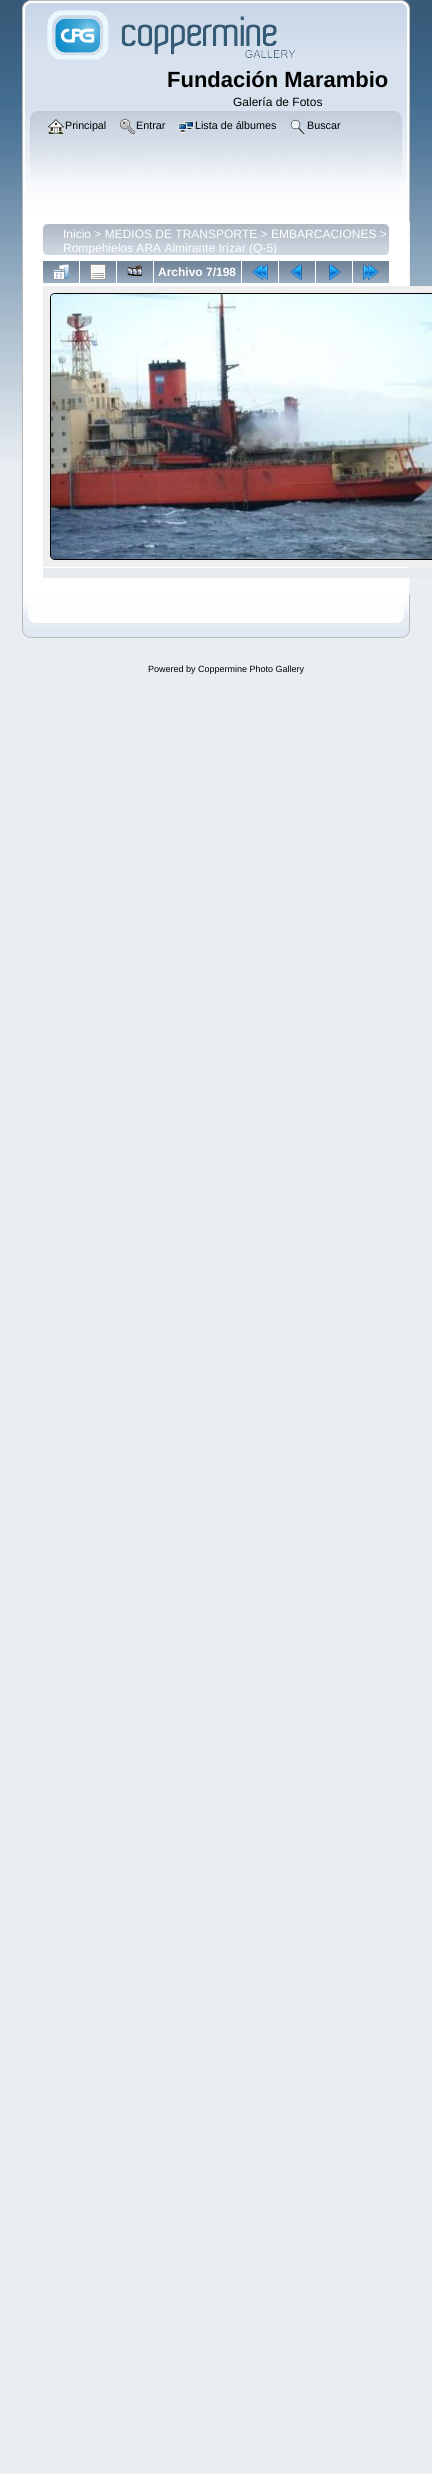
#include <cairo.h>
#include <math.h>
#include <stddef.h>

static cairo_t *ctx;

static void use_color(int r, int g, int b) {
    cairo_set_source_rgb(ctx, r / 255.0, g / 255.0, b / 255.0);
}

static void round_rect(double x, double y, double w, double h, double r) {
    cairo_new_sub_path(ctx);
    cairo_arc(ctx, x + w - r, y + h - r, r, 0, M_PI / 2);
    cairo_arc(ctx, x + r, y + h - r, r, M_PI / 2, M_PI);
    cairo_arc(ctx, x + r, y + r, r, M_PI, 1.5 * M_PI);
    cairo_arc(ctx, x + w - r, y + r, r, 1.5 * M_PI, 2 * M_PI);
    cairo_close_path(ctx);
}

static void picture(const char *path, double x, double y, double w, double h) {
    cairo_surface_t *image = cairo_image_surface_create_from_png(path);
    cairo_save(ctx);
    cairo_set_source_surface(ctx, image, x, y);
    cairo_rectangle(ctx, x, y, w, h);
    cairo_fill(ctx);
    cairo_restore(ctx);
    cairo_surface_destroy(image);
}

int main(void) {
    cairo_surface_t *surface = cairo_image_surface_create(CAIRO_FORMAT_RGB24, 432, 2474);
    ctx = cairo_create(surface);
    cairo_font_options_t *options = cairo_font_options_create();
    cairo_font_options_set_hint_metrics(options, CAIRO_HINT_METRICS_OFF);
    cairo_font_options_set_hint_style(options, CAIRO_HINT_STYLE_NONE);
    cairo_set_font_options(ctx, options);
    cairo_set_miter_limit(ctx, 4);
    use_color(233, 238, 242);
    cairo_paint(ctx);
    picture("img1.png", 0, 0, 432, 462);
    picture("img2.png", 22, 0, 380, 111);
    picture("img3.png", 402, 0, 8, 111);
    picture("img4.png", 47, 10, 248, 50);
    cairo_select_font_face(ctx, "Liberation Sans", CAIRO_FONT_SLANT_NORMAL, CAIRO_FONT_WEIGHT_BOLD);
    cairo_set_font_size(ctx, 22);
    use_color(0, 0, 0);
    cairo_move_to(ctx, 167, 87);
    cairo_show_text(ctx, "Fundación Marambio");
    cairo_select_font_face(ctx, "Liberation Sans", CAIRO_FONT_SLANT_NORMAL, CAIRO_FONT_WEIGHT_NORMAL);
    cairo_set_font_size(ctx, 12);
    cairo_move_to(ctx, 233, 106);
    cairo_show_text(ctx, "Galería de Fotos");
    picture("img5.png", 22, 111, 374, 110);
    picture("img6.png", 396, 111, 14, 110);
    picture("img7.png", 48, 119, 16, 16);
    cairo_set_font_size(ctx, 10.75);
    cairo_move_to(ctx, 65, 129);
    cairo_show_text(ctx, "Principal");
    picture("img8.png", 120, 119, 15, 15);
    cairo_move_to(ctx, 136, 129);
    cairo_show_text(ctx, "Entrar");
    picture("img9.png", 178, 121, 16, 12);
    cairo_move_to(ctx, 195, 129);
    cairo_show_text(ctx, "Lista de álbumes");
    picture("img10.png", 290, 119, 16, 15);
    cairo_move_to(ctx, 307, 129);
    cairo_show_text(ctx, "Buscar");
    use_color(255, 255, 255);
    cairo_rectangle(ctx, 23, 221, 386, 373);
    cairo_fill(ctx);
    use_color(183, 183, 183);
    cairo_rectangle(ctx, 22, 221, 1, 373);
    cairo_fill(ctx);
    use_color(242, 242, 242);
    cairo_rectangle(ctx, 409, 221, 1, 373);
    cairo_fill(ctx);
    picture("img11.png", 43, 224, 342, 31);
    picture("img12.png", 385, 224, 4, 31);
    cairo_set_font_size(ctx, 12);
    use_color(255, 255, 255);
    cairo_move_to(ctx, 63, 238);
    cairo_show_text(ctx, "Inicio > MEDIOS DE TRANSPORTE > EMBARCACIONES >");
    cairo_move_to(ctx, 63, 252);
    cairo_show_text(ctx, "Rompehielos ARA Almirante Irízar (Q-5)");
    picture("img13.png", 43, 261, 36, 22);
    picture("img14.png", 53, 264, 16, 16);
    picture("img13.png", 80, 261, 36, 22);
    picture("img15.png", 90, 264, 16, 16);
    picture("img13.png", 117, 261, 36, 22);
    picture("img16.png", 127, 265, 16, 12);
    picture("img17.png", 154, 261, 87, 22);
    cairo_select_font_face(ctx, "Liberation Sans", CAIRO_FONT_SLANT_NORMAL, CAIRO_FONT_WEIGHT_BOLD);
    cairo_move_to(ctx, 158, 276);
    cairo_show_text(ctx, "Archivo 7/198");
    picture("img13.png", 242, 261, 36, 22);
    picture("img18.png", 252, 264, 16, 16);
    picture("img13.png", 279, 261, 36, 22);
    picture("img19.png", 290, 264, 12, 16);
    picture("img13.png", 316, 261, 36, 22);
    picture("img20.png", 329, 264, 12, 16);
    picture("img13.png", 353, 261, 36, 22);
    picture("img21.png", 363, 264, 16, 16);
    use_color(239, 239, 239);
    cairo_rectangle(ctx, 43, 286, 389, 281);
    cairo_fill(ctx);
    round_rect(50.5, 293.5, 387, 266, 4.5);
    use_color(0, 0, 0);
    cairo_set_line_width(ctx, 1);
    cairo_stroke(ctx);
    picture("img22.png", 51, 294, 381, 265);
    use_color(231, 234, 239);
    cairo_rectangle(ctx, 43, 568, 389, 10);
    cairo_fill(ctx);
    picture("img23.png", 22, 594, 375, 44);
    picture("img24.png", 397, 594, 13, 44);
    cairo_select_font_face(ctx, "Liberation Sans", CAIRO_FONT_SLANT_NORMAL, CAIRO_FONT_WEIGHT_NORMAL);
    cairo_set_font_size(ctx, 9);
    use_color(0, 0, 0);
    cairo_move_to(ctx, 148, 672);
    cairo_show_text(ctx, "Powered by Coppermine Photo Gallery");
    cairo_surface_write_to_png(surface, "result.png");
    cairo_font_options_destroy(options);
    cairo_destroy(ctx);
    cairo_surface_destroy(surface);
    return 0;
}
